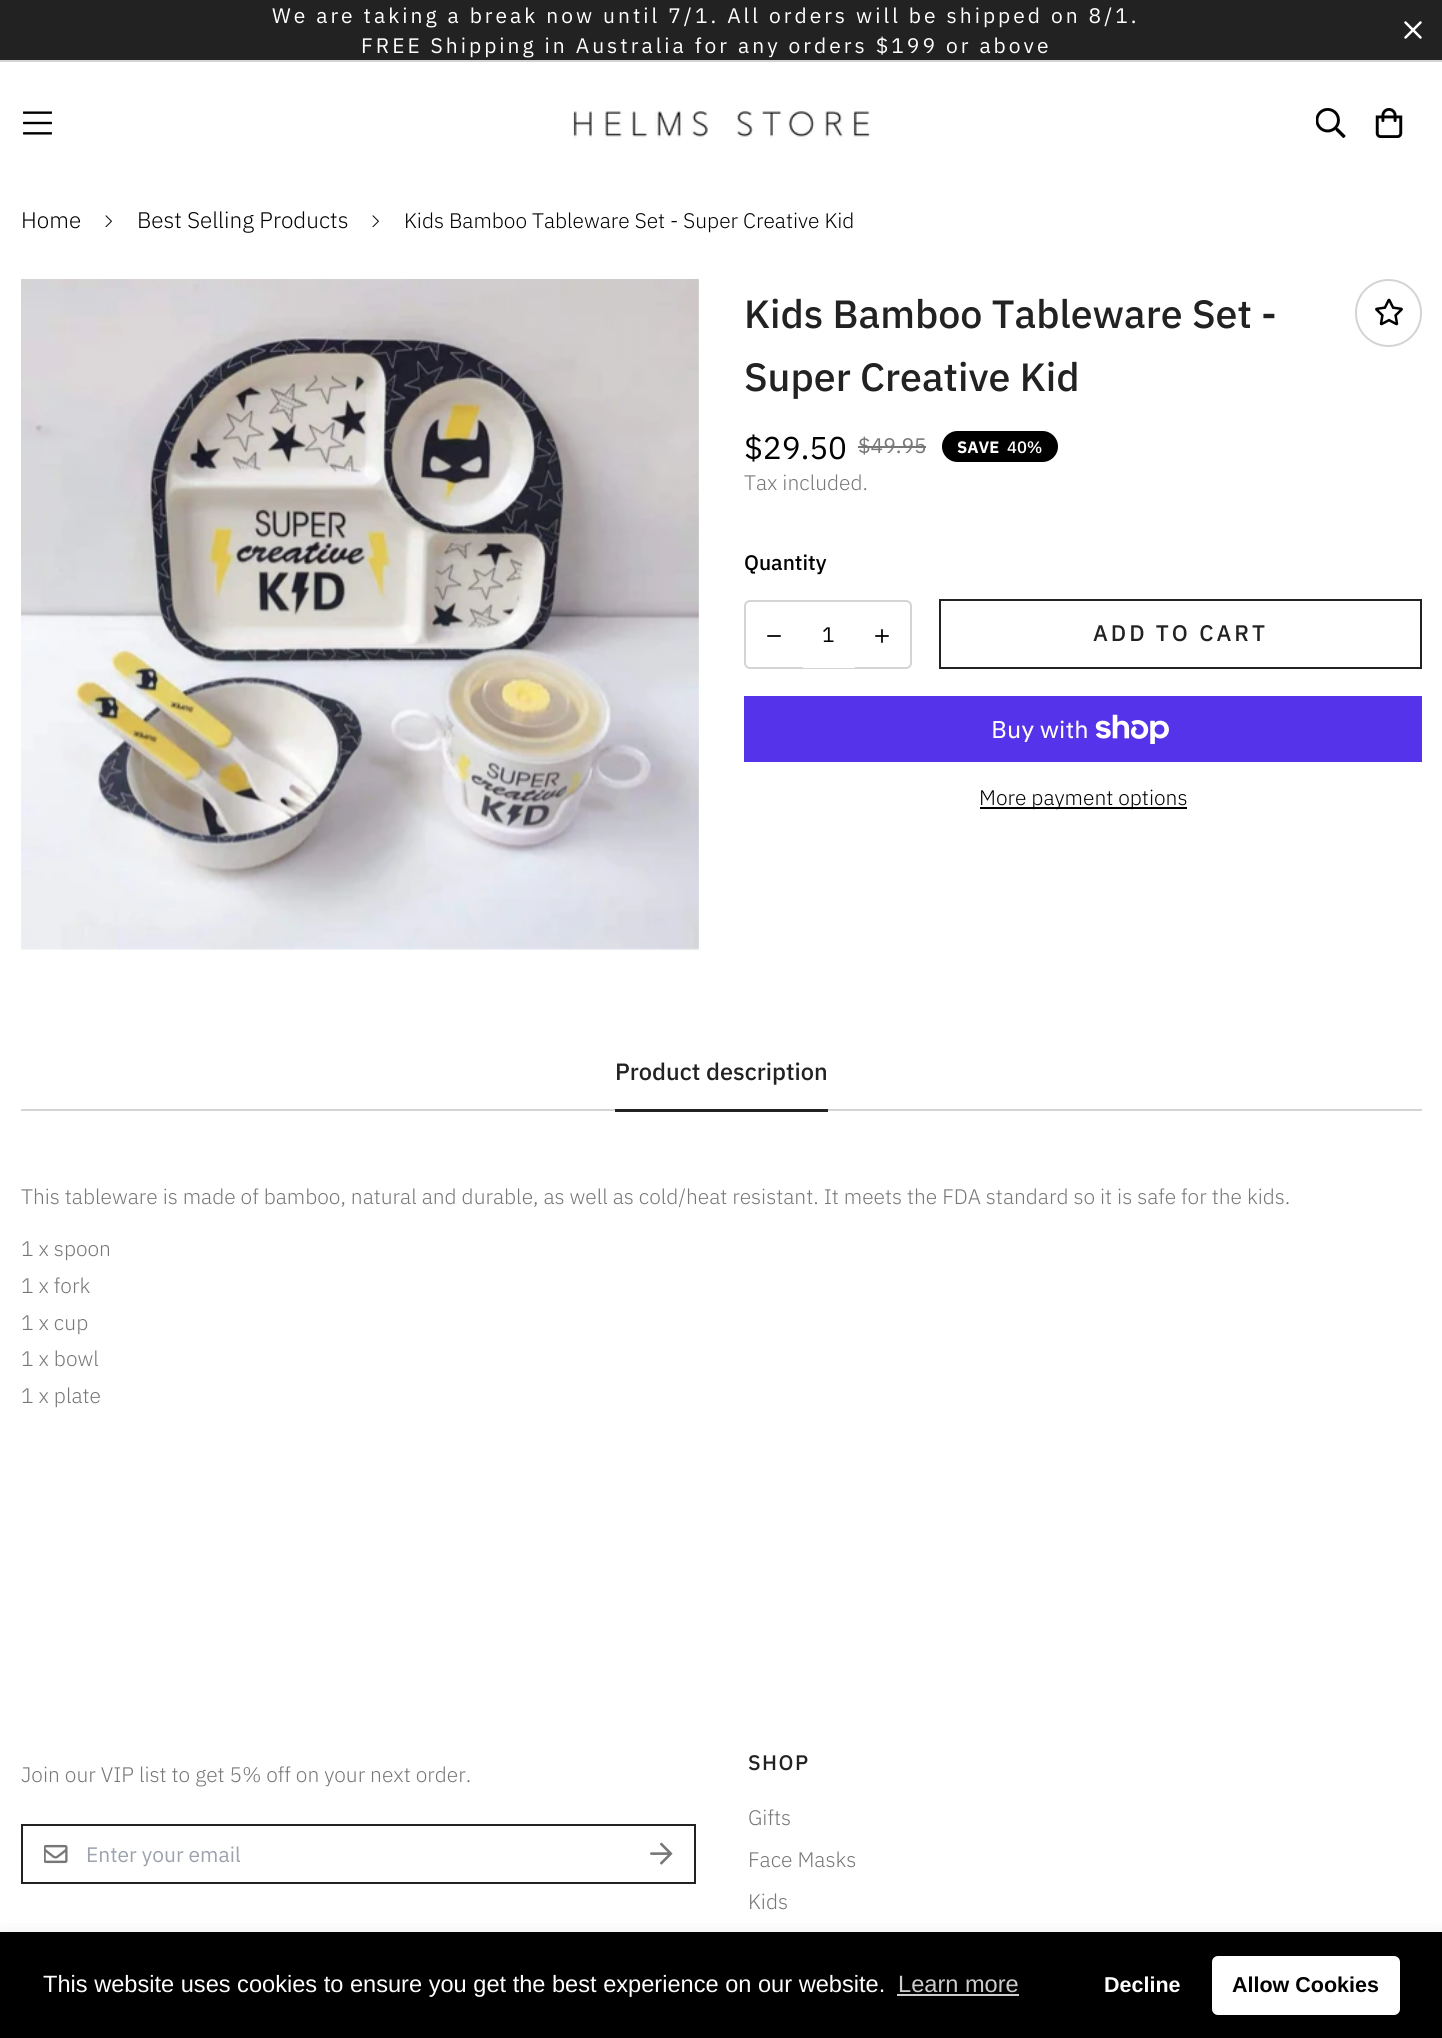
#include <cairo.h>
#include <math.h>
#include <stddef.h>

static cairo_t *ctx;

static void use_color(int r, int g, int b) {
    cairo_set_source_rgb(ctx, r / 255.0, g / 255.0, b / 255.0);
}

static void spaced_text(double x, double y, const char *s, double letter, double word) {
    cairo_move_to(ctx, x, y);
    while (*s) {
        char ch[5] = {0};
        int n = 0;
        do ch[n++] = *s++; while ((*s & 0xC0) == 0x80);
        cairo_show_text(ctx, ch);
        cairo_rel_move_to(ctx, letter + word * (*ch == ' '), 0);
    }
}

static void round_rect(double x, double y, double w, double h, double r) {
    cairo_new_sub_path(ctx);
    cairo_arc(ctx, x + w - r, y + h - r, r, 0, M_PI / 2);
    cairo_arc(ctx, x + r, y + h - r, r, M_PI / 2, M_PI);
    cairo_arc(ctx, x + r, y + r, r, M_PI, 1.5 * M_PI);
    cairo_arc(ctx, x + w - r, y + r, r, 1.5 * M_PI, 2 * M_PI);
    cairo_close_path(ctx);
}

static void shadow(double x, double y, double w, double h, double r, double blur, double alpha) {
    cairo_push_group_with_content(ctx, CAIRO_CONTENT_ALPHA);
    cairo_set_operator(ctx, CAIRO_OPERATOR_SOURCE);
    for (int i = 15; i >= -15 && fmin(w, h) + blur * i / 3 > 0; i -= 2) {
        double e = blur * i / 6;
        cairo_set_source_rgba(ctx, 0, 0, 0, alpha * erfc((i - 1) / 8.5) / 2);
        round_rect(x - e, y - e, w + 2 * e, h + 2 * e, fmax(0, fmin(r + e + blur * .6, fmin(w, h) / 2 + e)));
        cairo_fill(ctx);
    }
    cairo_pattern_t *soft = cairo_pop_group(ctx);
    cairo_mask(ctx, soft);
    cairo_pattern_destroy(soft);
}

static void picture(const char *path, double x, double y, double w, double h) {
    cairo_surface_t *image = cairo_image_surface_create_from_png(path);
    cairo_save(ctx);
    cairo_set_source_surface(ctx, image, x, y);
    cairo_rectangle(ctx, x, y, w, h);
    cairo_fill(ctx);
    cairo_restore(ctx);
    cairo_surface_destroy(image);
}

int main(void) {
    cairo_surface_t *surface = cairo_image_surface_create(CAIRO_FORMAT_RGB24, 1442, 2038);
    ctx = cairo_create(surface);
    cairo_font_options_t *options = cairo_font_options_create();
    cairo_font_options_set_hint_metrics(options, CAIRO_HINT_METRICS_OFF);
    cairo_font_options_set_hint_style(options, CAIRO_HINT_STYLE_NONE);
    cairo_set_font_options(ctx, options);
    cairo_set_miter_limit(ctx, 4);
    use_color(255, 255, 255);
    cairo_paint(ctx);
    use_color(34, 34, 34);
    cairo_rectangle(ctx, 0, 0, 1442, 60);
    cairo_fill(ctx);
    use_color(212, 212, 212);
    cairo_rectangle(ctx, 0, 60, 1442, 2);
    cairo_fill(ctx);
    cairo_select_font_face(ctx, "IBM Plex Sans", CAIRO_FONT_SLANT_NORMAL, CAIRO_FONT_WEIGHT_NORMAL);
    cairo_set_font_size(ctx, 21);
    use_color(255, 255, 255);
    spaced_text(272, 23, "We are taking a break now until 7/1. All orders will be shipped on 8/1.", 3, 0);
    spaced_text(361, 53, "FREE Shipping in Australia for any orders $199 or above", 3, 0);
    cairo_new_path(ctx);
    cairo_move_to(ctx, 1405.5, 37.5);
    cairo_line_to(ctx, 1420.5, 22.5);
    cairo_move_to(ctx, 1405.5, 22.5);
    cairo_line_to(ctx, 1420.5, 37.5);
    cairo_set_line_width(ctx, 2.5);
    cairo_set_line_cap(ctx, CAIRO_LINE_CAP_ROUND);
    cairo_set_line_join(ctx, CAIRO_LINE_JOIN_ROUND);
    cairo_stroke(ctx);
    picture("img1.png", 23, 111, 29, 24);
    picture("img2.png", 573, 110, 297, 30);
    picture("img3.png", 1316, 108, 30, 30);
    picture("img4.png", 1375, 108, 28, 30);
    cairo_select_font_face(ctx, "IBM Plex Sans Light", CAIRO_FONT_SLANT_NORMAL, CAIRO_FONT_WEIGHT_NORMAL);
    cairo_set_font_size(ctx, 22.5);
    use_color(0, 0, 0);
    cairo_move_to(ctx, 21, 228);
    cairo_show_text(ctx, "Home");
    picture("img5.png", 105, 215, 7, 13);
    cairo_move_to(ctx, 137, 228);
    cairo_show_text(ctx, "Best Selling Products");
    picture("img5.png", 372, 215, 7, 13);
    cairo_set_font_size(ctx, 21);
    cairo_move_to(ctx, 404, 228);
    cairo_show_text(ctx, "Kids Bamboo Tableware Set - Super Creative Kid");
    picture("img6.png", 21, 279, 678, 671);
    cairo_select_font_face(ctx, "IBM Plex Sans Medium", CAIRO_FONT_SLANT_NORMAL, CAIRO_FONT_WEIGHT_NORMAL);
    cairo_set_font_size(ctx, 39.4);
    use_color(34, 34, 34);
    cairo_move_to(ctx, 744, 328);
    cairo_show_text(ctx, "Kids Bamboo Tableware Set -");
    cairo_move_to(ctx, 744, 391);
    cairo_show_text(ctx, "Super Creative Kid");
    round_rect(1356, 280, 65, 66, 32.5);
    use_color(212, 212, 212);
    cairo_set_line_width(ctx, 2);
    cairo_set_line_cap(ctx, CAIRO_LINE_CAP_BUTT);
    cairo_set_line_join(ctx, CAIRO_LINE_JOIN_MITER);
    cairo_stroke(ctx);
    picture("img7.png", 1375, 298, 28, 28);
    cairo_select_font_face(ctx, "IBM Plex Sans", CAIRO_FONT_SLANT_NORMAL, CAIRO_FONT_WEIGHT_NORMAL);
    cairo_set_font_size(ctx, 31.5);
    use_color(0, 0, 0);
    cairo_move_to(ctx, 744, 459);
    cairo_show_text(ctx, "$29.50");
    cairo_set_font_size(ctx, 21);
    use_color(119, 119, 119);
    cairo_move_to(ctx, 858, 453);
    cairo_show_text(ctx, "$49.95");
    cairo_rectangle(ctx, 858, 446, 68, 2);
    cairo_fill(ctx);
    use_color(0, 0, 0);
    round_rect(942, 431, 116, 31, 15.5);
    cairo_fill(ctx);
    cairo_select_font_face(ctx, "IBM Plex Sans", CAIRO_FONT_SLANT_NORMAL, CAIRO_FONT_WEIGHT_BOLD);
    cairo_set_font_size(ctx, 16.5);
    use_color(255, 255, 255);
    cairo_move_to(ctx, 957, 453);
    cairo_show_text(ctx, "SAVE");
    cairo_select_font_face(ctx, "IBM Plex Sans Medium", CAIRO_FONT_SLANT_NORMAL, CAIRO_FONT_WEIGHT_NORMAL);
    cairo_move_to(ctx, 1007, 453);
    cairo_show_text(ctx, "40%");
    cairo_select_font_face(ctx, "IBM Plex Sans Light", CAIRO_FONT_SLANT_NORMAL, CAIRO_FONT_WEIGHT_NORMAL);
    cairo_set_font_size(ctx, 21);
    use_color(119, 119, 119);
    cairo_move_to(ctx, 744, 490);
    cairo_show_text(ctx, "Tax included.");
    cairo_select_font_face(ctx, "IBM Plex Sans Medium", CAIRO_FONT_SLANT_NORMAL, CAIRO_FONT_WEIGHT_NORMAL);
    use_color(0, 0, 0);
    cairo_move_to(ctx, 744, 570);
    cairo_show_text(ctx, "Quantity");
    round_rect(745, 601, 166, 67, 5);
    use_color(212, 212, 212);
    cairo_stroke(ctx);
    picture("img8.png", 767, 635, 14, 2);
    use_color(255, 255, 255);
    cairo_rectangle(ctx, 803, 667, 52, 1);
    cairo_fill(ctx);
    cairo_select_font_face(ctx, "IBM Plex Sans", CAIRO_FONT_SLANT_NORMAL, CAIRO_FONT_WEIGHT_NORMAL);
    use_color(0, 0, 0);
    cairo_move_to(ctx, 822, 642);
    cairo_show_text(ctx, "1");
    picture("img9.png", 875, 629, 14, 14);
    cairo_rectangle(ctx, 940, 600, 481, 68);
    use_color(34, 34, 34);
    cairo_stroke(ctx);
    cairo_select_font_face(ctx, "IBM Plex Sans Medium", CAIRO_FONT_SLANT_NORMAL, CAIRO_FONT_WEIGHT_NORMAL);
    cairo_set_font_size(ctx, 22.5);
    spaced_text(1093, 641, "ADD TO CART", 3, 0);
    use_color(84, 51, 235);
    cairo_rectangle(ctx, 744, 696, 678, 66);
    cairo_fill(ctx);
    cairo_select_font_face(ctx, "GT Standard", CAIRO_FONT_SLANT_NORMAL, CAIRO_FONT_WEIGHT_NORMAL);
    cairo_set_font_size(ctx, 24);
    use_color(255, 255, 255);
    cairo_move_to(ctx, 991, 738);
    cairo_show_text(ctx, "Buy with");
    picture("img10.png", 1095, 714, 74, 30);
    use_color(0, 0, 0);
    cairo_rectangle(ctx, 980, 807, 207, 2);
    cairo_fill(ctx);
    cairo_select_font_face(ctx, "IBM Plex Sans Light", CAIRO_FONT_SLANT_NORMAL, CAIRO_FONT_WEIGHT_NORMAL);
    cairo_set_font_size(ctx, 21);
    cairo_move_to(ctx, 979, 805);
    cairo_show_text(ctx, "More payment options");
    use_color(212, 212, 212);
    cairo_rectangle(ctx, 21, 1109, 1401, 2);
    cairo_fill(ctx);
    cairo_select_font_face(ctx, "IBM Plex Sans Medium", CAIRO_FONT_SLANT_NORMAL, CAIRO_FONT_WEIGHT_NORMAL);
    cairo_set_font_size(ctx, 23.6);
    use_color(34, 34, 34);
    cairo_move_to(ctx, 615, 1080);
    cairo_show_text(ctx, "Product description");
    cairo_rectangle(ctx, 615, 1109, 213, 3);
    cairo_fill(ctx);
    cairo_select_font_face(ctx, "IBM Plex Sans Light", CAIRO_FONT_SLANT_NORMAL, CAIRO_FONT_WEIGHT_NORMAL);
    cairo_set_font_size(ctx, 21);
    use_color(119, 119, 119);
    cairo_move_to(ctx, 21, 1204);
    cairo_show_text(ctx, "This tableware is made of bamboo, natural and durable, as well as cold/heat resistant. It meets the FDA standard so it is safe for the kids.");
    cairo_move_to(ctx, 21, 1256);
    cairo_show_text(ctx, "1 x spoon");
    cairo_move_to(ctx, 21, 1293);
    cairo_show_text(ctx, "1 x fork");
    cairo_move_to(ctx, 21, 1330);
    cairo_show_text(ctx, "1 x cup");
    cairo_move_to(ctx, 21, 1366);
    cairo_show_text(ctx, "1 x bowl");
    cairo_move_to(ctx, 21, 1403);
    cairo_show_text(ctx, "1 x plate");
    cairo_move_to(ctx, 21, 1782);
    cairo_show_text(ctx, "Join our VIP list to get 5% off on your next order.");
    cairo_rectangle(ctx, 22, 1825, 673, 58);
    use_color(34, 34, 34);
    cairo_stroke(ctx);
    picture("img11.png", 44, 1844, 24, 20);
    cairo_select_font_face(ctx, "IBM Plex Sans", CAIRO_FONT_SLANT_NORMAL, CAIRO_FONT_WEIGHT_NORMAL);
    use_color(156, 163, 175);
    cairo_move_to(ctx, 86, 1862);
    cairo_show_text(ctx, "Enter your email");
    picture("img12.png", 650, 1842, 23, 23);
    cairo_select_font_face(ctx, "IBM Plex Sans Medium", CAIRO_FONT_SLANT_NORMAL, CAIRO_FONT_WEIGHT_NORMAL);
    use_color(34, 34, 34);
    spaced_text(748, 1770, "SHOP", 1.5, 0);
    cairo_select_font_face(ctx, "IBM Plex Sans Light", CAIRO_FONT_SLANT_NORMAL, CAIRO_FONT_WEIGHT_NORMAL);
    use_color(119, 119, 119);
    cairo_move_to(ctx, 748, 1825);
    cairo_show_text(ctx, "Gifts");
    cairo_move_to(ctx, 748, 1867);
    cairo_show_text(ctx, "Face Masks");
    cairo_move_to(ctx, 748, 1909);
    cairo_show_text(ctx, "Kids");
    use_color(0, 0, 0);
    shadow(0, 1940, 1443, 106, 0, 11, 0.15);
    use_color(0, 0, 0);
    cairo_rectangle(ctx, 0, 1932, 1442, 106);
    cairo_fill(ctx);
    cairo_select_font_face(ctx, "Liberation Sans", CAIRO_FONT_SLANT_NORMAL, CAIRO_FONT_WEIGHT_NORMAL);
    cairo_set_font_size(ctx, 23.6);
    use_color(255, 255, 255);
    cairo_move_to(ctx, 43, 1992);
    cairo_show_text(ctx, "This website uses cookies to ensure you get the best experience on our website.");
    use_color(204, 204, 204);
    cairo_move_to(ctx, 898, 1992);
    cairo_show_text(ctx, "Learn more");
    cairo_rectangle(ctx, 897, 1994, 122, 2);
    cairo_fill(ctx);
    cairo_select_font_face(ctx, "Liberation Sans", CAIRO_FONT_SLANT_NORMAL, CAIRO_FONT_WEIGHT_BOLD);
    cairo_set_font_size(ctx, 21.5);
    use_color(255, 255, 255);
    cairo_move_to(ctx, 1104, 1992);
    cairo_show_text(ctx, "Decline");
    round_rect(1212, 1956, 188, 59, 6);
    cairo_fill(ctx);
    use_color(0, 0, 0);
    cairo_move_to(ctx, 1232, 1992);
    cairo_show_text(ctx, "Allow Cookies");
    cairo_surface_write_to_png(surface, "result.png");
    cairo_font_options_destroy(options);
    cairo_destroy(ctx);
    cairo_surface_destroy(surface);
    return 0;
}
